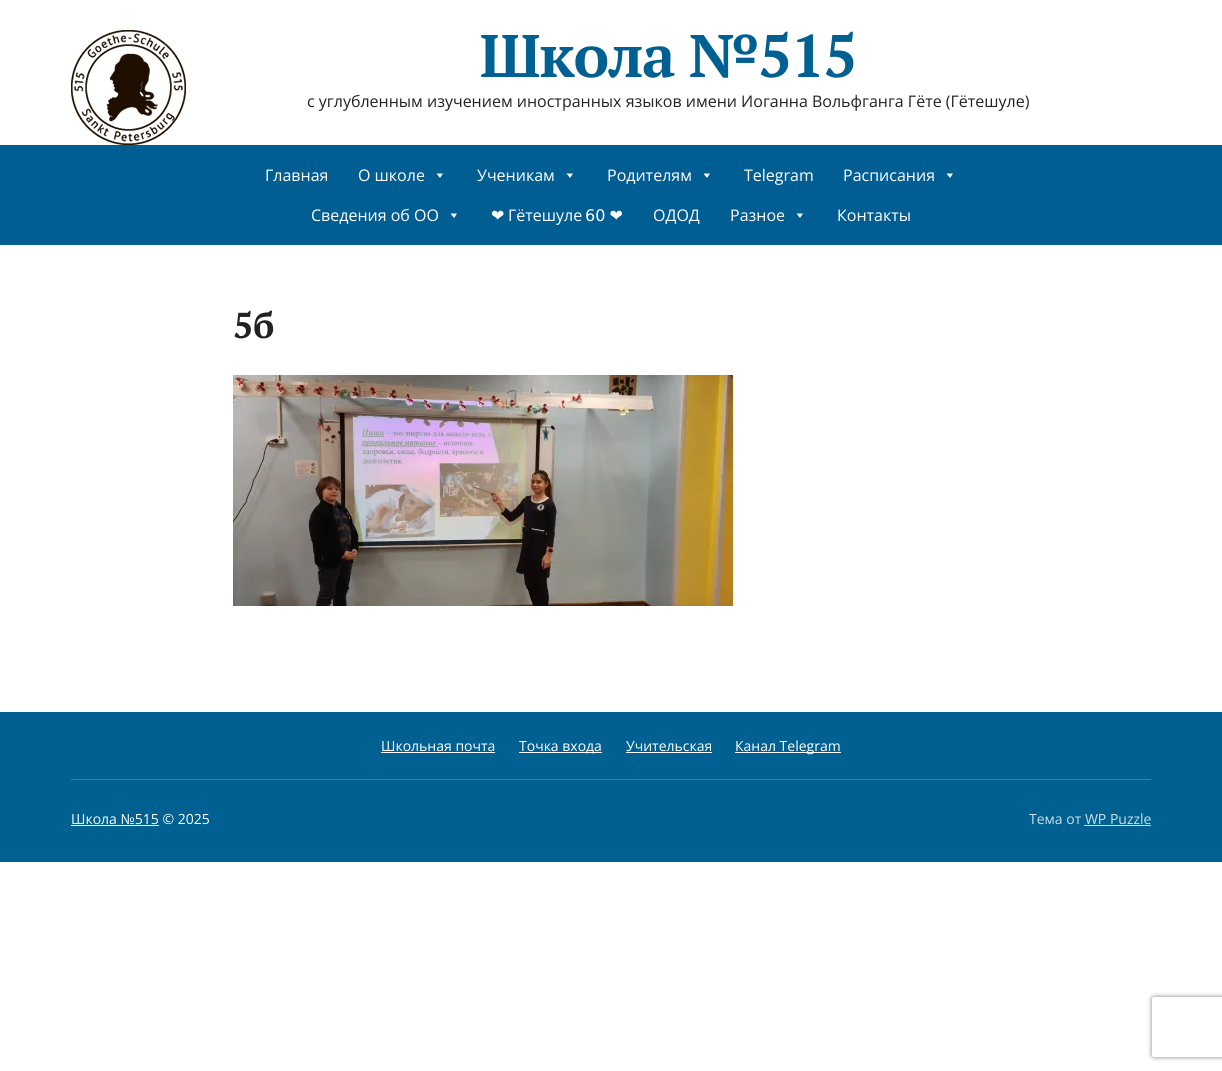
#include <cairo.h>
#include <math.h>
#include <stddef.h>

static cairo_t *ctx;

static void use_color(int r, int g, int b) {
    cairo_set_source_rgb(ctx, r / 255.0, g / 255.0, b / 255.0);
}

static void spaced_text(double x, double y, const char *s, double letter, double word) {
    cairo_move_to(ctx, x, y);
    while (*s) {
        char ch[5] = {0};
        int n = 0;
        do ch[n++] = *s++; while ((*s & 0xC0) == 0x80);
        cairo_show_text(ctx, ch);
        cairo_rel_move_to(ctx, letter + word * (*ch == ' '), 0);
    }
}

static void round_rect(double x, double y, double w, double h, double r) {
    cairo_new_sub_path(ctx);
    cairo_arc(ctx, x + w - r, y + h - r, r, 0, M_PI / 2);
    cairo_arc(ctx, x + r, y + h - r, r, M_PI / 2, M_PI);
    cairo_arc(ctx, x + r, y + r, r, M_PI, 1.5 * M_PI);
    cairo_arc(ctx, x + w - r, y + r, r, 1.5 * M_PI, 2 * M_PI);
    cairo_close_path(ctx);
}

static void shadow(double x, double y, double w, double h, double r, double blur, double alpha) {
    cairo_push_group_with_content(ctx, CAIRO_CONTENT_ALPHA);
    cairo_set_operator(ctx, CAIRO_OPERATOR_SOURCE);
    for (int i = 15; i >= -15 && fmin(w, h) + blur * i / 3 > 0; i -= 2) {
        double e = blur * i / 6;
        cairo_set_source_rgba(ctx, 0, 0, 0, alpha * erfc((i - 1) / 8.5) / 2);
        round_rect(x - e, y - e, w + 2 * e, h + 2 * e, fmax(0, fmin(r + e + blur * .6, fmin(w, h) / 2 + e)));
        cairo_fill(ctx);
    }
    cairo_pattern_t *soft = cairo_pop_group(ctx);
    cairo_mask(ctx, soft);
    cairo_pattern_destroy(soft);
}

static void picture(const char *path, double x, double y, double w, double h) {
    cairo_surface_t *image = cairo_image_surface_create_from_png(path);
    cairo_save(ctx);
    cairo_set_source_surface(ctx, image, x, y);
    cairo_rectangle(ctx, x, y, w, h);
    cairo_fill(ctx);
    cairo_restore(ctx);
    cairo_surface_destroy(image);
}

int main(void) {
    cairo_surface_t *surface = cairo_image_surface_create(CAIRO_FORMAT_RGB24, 1222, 1071);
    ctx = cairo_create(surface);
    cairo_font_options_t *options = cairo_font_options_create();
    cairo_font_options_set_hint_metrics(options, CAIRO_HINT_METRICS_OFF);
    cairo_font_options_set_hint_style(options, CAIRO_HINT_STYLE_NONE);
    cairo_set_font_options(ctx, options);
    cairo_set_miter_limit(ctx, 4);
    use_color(255, 255, 255);
    cairo_paint(ctx);
    picture("img1.png", 71, 30, 115, 115);
    cairo_select_font_face(ctx, "PT Serif", CAIRO_FONT_SLANT_NORMAL, CAIRO_FONT_WEIGHT_BOLD);
    cairo_set_font_size(ctx, 60);
    use_color(0, 96, 145);
    spaced_text(480, 77, "Школа №515", -1.25, 0);
    cairo_select_font_face(ctx, "Open Sans", CAIRO_FONT_SLANT_NORMAL, CAIRO_FONT_WEIGHT_NORMAL);
    cairo_set_font_size(ctx, 16);
    use_color(34, 34, 34);
    cairo_move_to(ctx, 307, 107);
    cairo_show_text(ctx, "с углубленным изучением иностранных языков имени Иоганна Вольфганга Гёте (Гётешуле)");
    use_color(0, 94, 147);
    cairo_rectangle(ctx, 0, 145, 1222, 100);
    cairo_fill(ctx);
    use_color(255, 255, 255);
    cairo_move_to(ctx, 265, 181);
    cairo_show_text(ctx, "Главная");
    cairo_move_to(ctx, 358, 181);
    cairo_show_text(ctx, "О школе");
    cairo_new_path(ctx);
    cairo_move_to(ctx, 443, 173.5);
    cairo_line_to(ctx, 440, 178);
    cairo_line_to(ctx, 436.5, 173.5);
    cairo_close_path(ctx);
    cairo_fill(ctx);
    cairo_move_to(ctx, 477, 181);
    cairo_show_text(ctx, "Ученикам");
    cairo_new_path(ctx);
    cairo_move_to(ctx, 573, 173.5);
    cairo_line_to(ctx, 570, 178);
    cairo_line_to(ctx, 566.5, 173.5);
    cairo_close_path(ctx);
    cairo_fill(ctx);
    cairo_move_to(ctx, 607, 181);
    cairo_show_text(ctx, "Родителям");
    cairo_new_path(ctx);
    cairo_move_to(ctx, 710, 173.5);
    cairo_line_to(ctx, 707, 178);
    cairo_line_to(ctx, 703.5, 173.5);
    cairo_close_path(ctx);
    cairo_fill(ctx);
    cairo_move_to(ctx, 744, 181);
    cairo_show_text(ctx, "Telegram");
    cairo_move_to(ctx, 843, 181);
    cairo_show_text(ctx, "Расписания");
    cairo_new_path(ctx);
    cairo_move_to(ctx, 953, 173.5);
    cairo_line_to(ctx, 950, 178);
    cairo_line_to(ctx, 946.5, 173.5);
    cairo_close_path(ctx);
    cairo_fill(ctx);
    cairo_move_to(ctx, 311, 221);
    cairo_show_text(ctx, "Сведения об ОО");
    cairo_new_path(ctx);
    cairo_move_to(ctx, 457, 213.5);
    cairo_line_to(ctx, 454, 218);
    cairo_line_to(ctx, 450.5, 213.5);
    cairo_close_path(ctx);
    cairo_fill(ctx);
    cairo_select_font_face(ctx, "DejaVu Sans", CAIRO_FONT_SLANT_NORMAL, CAIRO_FONT_WEIGHT_NORMAL);
    cairo_move_to(ctx, 491, 221);
    cairo_show_text(ctx, "❤");
    cairo_select_font_face(ctx, "Open Sans", CAIRO_FONT_SLANT_NORMAL, CAIRO_FONT_WEIGHT_NORMAL);
    cairo_move_to(ctx, 508, 221);
    cairo_show_text(ctx, "Гётешуле");
    cairo_select_font_face(ctx, "DejaVu Sans", CAIRO_FONT_SLANT_NORMAL, CAIRO_FONT_WEIGHT_NORMAL);
    spaced_text(585, 221, "60 ❤", 0, -1);
    cairo_select_font_face(ctx, "Open Sans", CAIRO_FONT_SLANT_NORMAL, CAIRO_FONT_WEIGHT_NORMAL);
    cairo_move_to(ctx, 653, 221);
    cairo_show_text(ctx, "ОДОД");
    cairo_move_to(ctx, 730, 221);
    cairo_show_text(ctx, "Разное");
    cairo_new_path(ctx);
    cairo_move_to(ctx, 803, 213.5);
    cairo_line_to(ctx, 800, 218);
    cairo_line_to(ctx, 796.5, 213.5);
    cairo_close_path(ctx);
    cairo_fill(ctx);
    cairo_move_to(ctx, 837, 221);
    cairo_show_text(ctx, "Контакты");
    cairo_select_font_face(ctx, "PT Serif", CAIRO_FONT_SLANT_NORMAL, CAIRO_FONT_WEIGHT_BOLD);
    cairo_set_font_size(ctx, 36);
    use_color(34, 34, 34);
    cairo_move_to(ctx, 233, 338);
    cairo_show_text(ctx, "5б");
    picture("img2.png", 233, 375, 500, 231);
    use_color(0, 96, 145);
    cairo_rectangle(ctx, 0, 712, 1222, 150);
    cairo_fill(ctx);
    use_color(51, 128, 167);
    cairo_rectangle(ctx, 71, 779, 1080, 1);
    cairo_fill(ctx);
    cairo_select_font_face(ctx, "Open Sans", CAIRO_FONT_SLANT_NORMAL, CAIRO_FONT_WEIGHT_NORMAL);
    cairo_set_font_size(ctx, 14);
    use_color(255, 255, 255);
    cairo_move_to(ctx, 381, 751);
    cairo_show_text(ctx, "Школьная почта");
    cairo_rectangle(ctx, 381, 752, 114, 1);
    cairo_fill(ctx);
    cairo_rectangle(ctx, 519, 752, 83, 1);
    cairo_fill(ctx);
    cairo_move_to(ctx, 519, 751);
    cairo_show_text(ctx, "Точка входа");
    cairo_move_to(ctx, 626, 751);
    cairo_show_text(ctx, "Учительская");
    cairo_rectangle(ctx, 626, 752, 86, 1);
    cairo_fill(ctx);
    cairo_rectangle(ctx, 735, 752, 106, 1);
    cairo_fill(ctx);
    cairo_move_to(ctx, 735, 751);
    cairo_show_text(ctx, "Канал Telegram");
    cairo_move_to(ctx, 71, 824);
    cairo_show_text(ctx, "Школа №515 © 2025");
    cairo_rectangle(ctx, 71, 825, 88, 1);
    cairo_fill(ctx);
    use_color(204, 223, 233);
    cairo_move_to(ctx, 1029, 824);
    cairo_show_text(ctx, "Тема от WP Puzzle");
    cairo_rectangle(ctx, 1084, 825, 67, 1);
    cairo_fill(ctx);
    cairo_save(ctx);
    cairo_set_fill_rule(ctx, CAIRO_FILL_RULE_EVEN_ODD);
    cairo_new_path(ctx);
    cairo_move_to(ctx, 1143, 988);
    cairo_line_to(ctx, 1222, 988);
    cairo_line_to(ctx, 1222, 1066);
    cairo_line_to(ctx, 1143, 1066);
    cairo_close_path(ctx);
    cairo_move_to(ctx, 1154, 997);
    cairo_line_to(ctx, 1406, 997);
    cairo_curve_to(ctx, 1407, 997, 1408, 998, 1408, 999);
    cairo_line_to(ctx, 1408, 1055);
    cairo_curve_to(ctx, 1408, 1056, 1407, 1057, 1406, 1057);
    cairo_line_to(ctx, 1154, 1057);
    cairo_curve_to(ctx, 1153, 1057, 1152, 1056, 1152, 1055);
    cairo_line_to(ctx, 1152, 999);
    cairo_curve_to(ctx, 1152, 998, 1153, 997, 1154, 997);
    cairo_close_path(ctx);
    cairo_clip(ctx);
    use_color(128, 128, 128);
    shadow(1152, 997, 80, 60, 2, 2.5, 1);
    cairo_restore(ctx);
    cairo_surface_write_to_png(surface, "result.png");
    cairo_font_options_destroy(options);
    cairo_destroy(ctx);
    cairo_surface_destroy(surface);
    return 0;
}
